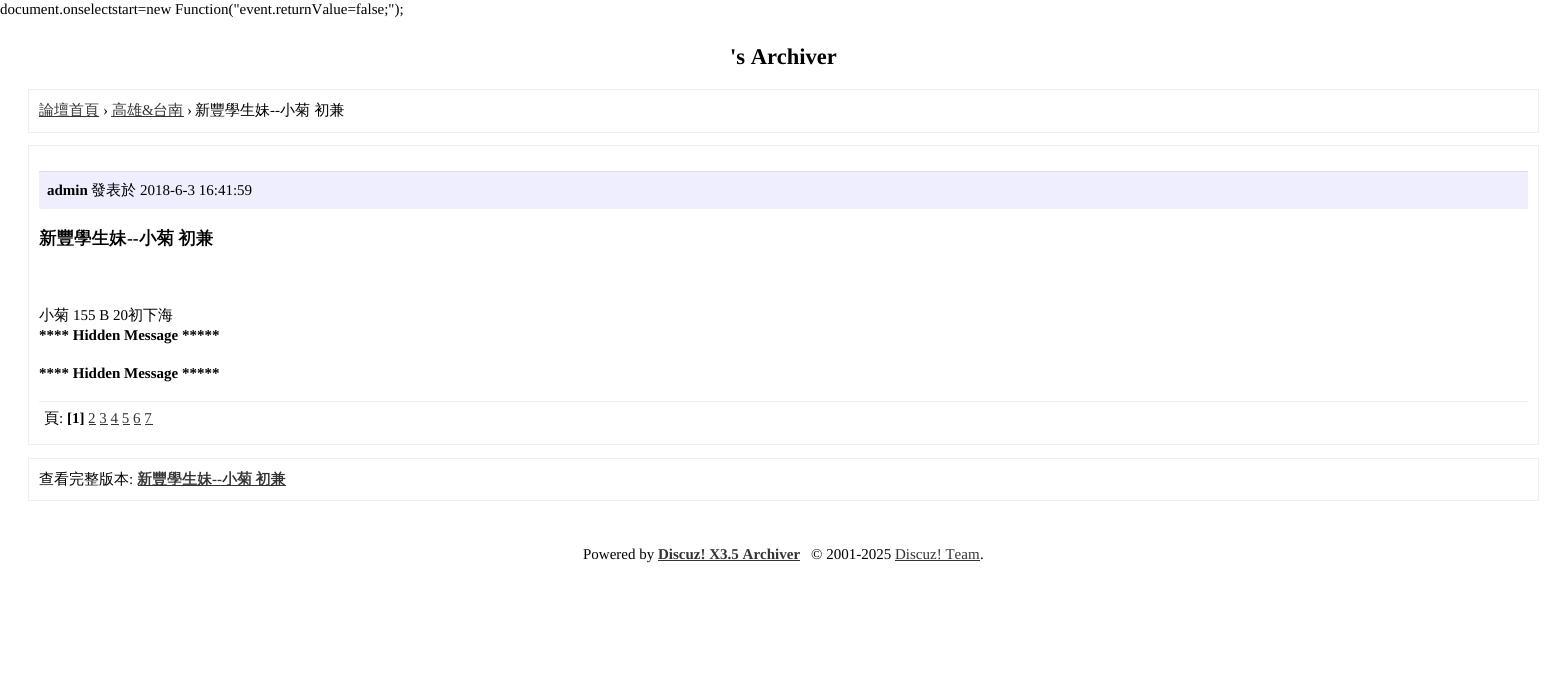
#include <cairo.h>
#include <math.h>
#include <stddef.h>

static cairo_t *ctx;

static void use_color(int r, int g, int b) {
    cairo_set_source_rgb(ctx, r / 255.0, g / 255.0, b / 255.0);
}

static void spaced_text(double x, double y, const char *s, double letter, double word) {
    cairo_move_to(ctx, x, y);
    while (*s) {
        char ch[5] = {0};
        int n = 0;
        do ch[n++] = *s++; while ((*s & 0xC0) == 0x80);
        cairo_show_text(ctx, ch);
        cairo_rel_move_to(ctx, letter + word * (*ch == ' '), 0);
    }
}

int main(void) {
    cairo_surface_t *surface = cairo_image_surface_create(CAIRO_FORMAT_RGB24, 1566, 678);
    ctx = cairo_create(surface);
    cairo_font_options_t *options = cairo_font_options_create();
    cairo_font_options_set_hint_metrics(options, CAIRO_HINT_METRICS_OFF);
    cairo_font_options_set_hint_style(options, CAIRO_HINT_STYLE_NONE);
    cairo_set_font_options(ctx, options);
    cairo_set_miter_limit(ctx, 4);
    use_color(255, 255, 255);
    cairo_paint(ctx);
    cairo_select_font_face(ctx, "Liberation Serif", CAIRO_FONT_SLANT_NORMAL, CAIRO_FONT_WEIGHT_NORMAL);
    cairo_set_font_size(ctx, 15);
    use_color(0, 0, 0);
    cairo_move_to(ctx, 0, 14);
    cairo_show_text(ctx, "document.onselectstart=new Function(\"event.returnValue=false;\");");
    cairo_select_font_face(ctx, "Liberation Serif", CAIRO_FONT_SLANT_NORMAL, CAIRO_FONT_WEIGHT_BOLD);
    cairo_set_font_size(ctx, 22.5);
    cairo_move_to(ctx, 730, 64);
    cairo_show_text(ctx, "'s Archiver");
    cairo_rectangle(ctx, 28.5, 89.5, 1510, 43);
    use_color(238, 238, 238);
    cairo_set_line_width(ctx, 1);
    cairo_stroke(ctx);
    use_color(51, 51, 51);
    cairo_rectangle(ctx, 39, 116, 60, 1);
    cairo_fill(ctx);
    cairo_select_font_face(ctx, "WenQuanYi Zen Hei Medium", CAIRO_FONT_SLANT_NORMAL, CAIRO_FONT_WEIGHT_NORMAL);
    cairo_set_font_size(ctx, 15);
    cairo_move_to(ctx, 39, 115);
    cairo_show_text(ctx, "論壇首頁");
    cairo_select_font_face(ctx, "Liberation Serif", CAIRO_FONT_SLANT_NORMAL, CAIRO_FONT_WEIGHT_NORMAL);
    use_color(0, 0, 0);
    cairo_move_to(ctx, 103, 115);
    cairo_show_text(ctx, "›");
    use_color(51, 51, 51);
    cairo_rectangle(ctx, 111, 116, 73, 1);
    cairo_fill(ctx);
    cairo_select_font_face(ctx, "WenQuanYi Zen Hei Medium", CAIRO_FONT_SLANT_NORMAL, CAIRO_FONT_WEIGHT_NORMAL);
    cairo_move_to(ctx, 112, 115);
    cairo_show_text(ctx, "高雄");
    cairo_select_font_face(ctx, "Liberation Serif", CAIRO_FONT_SLANT_NORMAL, CAIRO_FONT_WEIGHT_NORMAL);
    cairo_move_to(ctx, 142, 115);
    cairo_show_text(ctx, "&");
    cairo_select_font_face(ctx, "WenQuanYi Zen Hei Medium", CAIRO_FONT_SLANT_NORMAL, CAIRO_FONT_WEIGHT_NORMAL);
    cairo_move_to(ctx, 153, 115);
    cairo_show_text(ctx, "台南");
    cairo_select_font_face(ctx, "Liberation Serif", CAIRO_FONT_SLANT_NORMAL, CAIRO_FONT_WEIGHT_NORMAL);
    use_color(0, 0, 0);
    cairo_move_to(ctx, 187, 115);
    cairo_show_text(ctx, "›");
    cairo_select_font_face(ctx, "WenQuanYi Zen Hei Medium", CAIRO_FONT_SLANT_NORMAL, CAIRO_FONT_WEIGHT_NORMAL);
    cairo_move_to(ctx, 195, 115);
    cairo_show_text(ctx, "新豐學生妹");
    cairo_select_font_face(ctx, "Liberation Serif", CAIRO_FONT_SLANT_NORMAL, CAIRO_FONT_WEIGHT_NORMAL);
    cairo_move_to(ctx, 270, 115);
    cairo_show_text(ctx, "--");
    cairo_select_font_face(ctx, "WenQuanYi Zen Hei Medium", CAIRO_FONT_SLANT_NORMAL, CAIRO_FONT_WEIGHT_NORMAL);
    cairo_move_to(ctx, 280, 115);
    cairo_show_text(ctx, "小菊 初兼");
    cairo_rectangle(ctx, 28.5, 145.5, 1510, 299);
    use_color(238, 238, 238);
    cairo_stroke(ctx);
    use_color(238, 238, 255);
    cairo_rectangle(ctx, 39, 172, 1489, 37);
    cairo_fill(ctx);
    use_color(221, 221, 238);
    cairo_rectangle(ctx, 39, 171, 1489, 1);
    cairo_fill(ctx);
    cairo_select_font_face(ctx, "Liberation Serif", CAIRO_FONT_SLANT_NORMAL, CAIRO_FONT_WEIGHT_BOLD);
    use_color(0, 0, 0);
    cairo_move_to(ctx, 47, 195);
    cairo_show_text(ctx, "admin");
    cairo_select_font_face(ctx, "WenQuanYi Zen Hei Medium", CAIRO_FONT_SLANT_NORMAL, CAIRO_FONT_WEIGHT_NORMAL);
    cairo_move_to(ctx, 91, 195);
    cairo_show_text(ctx, "發表於");
    cairo_select_font_face(ctx, "Liberation Serif", CAIRO_FONT_SLANT_NORMAL, CAIRO_FONT_WEIGHT_NORMAL);
    cairo_move_to(ctx, 140, 195);
    cairo_show_text(ctx, "2018-6-3 16:41:59");
    cairo_select_font_face(ctx, "WenQuanYi Zen Hei", CAIRO_FONT_SLANT_NORMAL, CAIRO_FONT_WEIGHT_BOLD);
    cairo_set_font_size(ctx, 17.5);
    cairo_move_to(ctx, 39, 244);
    cairo_show_text(ctx, "新豐學生妹");
    cairo_select_font_face(ctx, "Liberation Serif", CAIRO_FONT_SLANT_NORMAL, CAIRO_FONT_WEIGHT_BOLD);
    cairo_move_to(ctx, 127, 244);
    cairo_show_text(ctx, "--");
    cairo_select_font_face(ctx, "WenQuanYi Zen Hei", CAIRO_FONT_SLANT_NORMAL, CAIRO_FONT_WEIGHT_BOLD);
    spaced_text(139, 244, "小菊 初兼", 0, -1);
    cairo_select_font_face(ctx, "WenQuanYi Zen Hei Medium", CAIRO_FONT_SLANT_NORMAL, CAIRO_FONT_WEIGHT_NORMAL);
    cairo_set_font_size(ctx, 15);
    cairo_move_to(ctx, 39, 320);
    cairo_show_text(ctx, "小菊");
    cairo_select_font_face(ctx, "Liberation Serif", CAIRO_FONT_SLANT_NORMAL, CAIRO_FONT_WEIGHT_NORMAL);
    cairo_move_to(ctx, 73, 320);
    cairo_show_text(ctx, "155 B 20");
    cairo_select_font_face(ctx, "WenQuanYi Zen Hei Medium", CAIRO_FONT_SLANT_NORMAL, CAIRO_FONT_WEIGHT_NORMAL);
    cairo_move_to(ctx, 128, 320);
    cairo_show_text(ctx, "初下海");
    cairo_select_font_face(ctx, "Liberation Serif", CAIRO_FONT_SLANT_NORMAL, CAIRO_FONT_WEIGHT_BOLD);
    cairo_move_to(ctx, 39, 340);
    cairo_show_text(ctx, "**** Hidden Message *****");
    cairo_move_to(ctx, 39, 378);
    cairo_show_text(ctx, "**** Hidden Message *****");
    use_color(238, 238, 238);
    cairo_rectangle(ctx, 39, 401, 1489, 1);
    cairo_fill(ctx);
    cairo_select_font_face(ctx, "WenQuanYi Zen Hei Medium", CAIRO_FONT_SLANT_NORMAL, CAIRO_FONT_WEIGHT_NORMAL);
    use_color(0, 0, 0);
    cairo_move_to(ctx, 44, 423);
    cairo_show_text(ctx, "頁");
    cairo_select_font_face(ctx, "Liberation Serif", CAIRO_FONT_SLANT_NORMAL, CAIRO_FONT_WEIGHT_NORMAL);
    cairo_move_to(ctx, 59, 423);
    cairo_show_text(ctx, ":");
    cairo_select_font_face(ctx, "Liberation Serif", CAIRO_FONT_SLANT_NORMAL, CAIRO_FONT_WEIGHT_BOLD);
    cairo_move_to(ctx, 67, 423);
    cairo_show_text(ctx, "[1]");
    cairo_select_font_face(ctx, "Liberation Serif", CAIRO_FONT_SLANT_NORMAL, CAIRO_FONT_WEIGHT_NORMAL);
    use_color(51, 51, 51);
    cairo_move_to(ctx, 88, 423);
    cairo_show_text(ctx, "2 3 4 5 6 7");
    cairo_rectangle(ctx, 89, 424, 7, 1);
    cairo_fill(ctx);
    cairo_rectangle(ctx, 100, 424, 8, 1);
    cairo_fill(ctx);
    cairo_rectangle(ctx, 111, 424, 8, 1);
    cairo_fill(ctx);
    cairo_rectangle(ctx, 123, 424, 7, 1);
    cairo_fill(ctx);
    cairo_rectangle(ctx, 134, 424, 7, 1);
    cairo_fill(ctx);
    cairo_rectangle(ctx, 145, 424, 8, 1);
    cairo_fill(ctx);
    cairo_rectangle(ctx, 28.5, 458.5, 1510, 42);
    use_color(238, 238, 238);
    cairo_stroke(ctx);
    cairo_select_font_face(ctx, "WenQuanYi Zen Hei Medium", CAIRO_FONT_SLANT_NORMAL, CAIRO_FONT_WEIGHT_NORMAL);
    use_color(0, 0, 0);
    cairo_move_to(ctx, 39, 484);
    cairo_show_text(ctx, "查看完整版本");
    cairo_select_font_face(ctx, "Liberation Serif", CAIRO_FONT_SLANT_NORMAL, CAIRO_FONT_WEIGHT_NORMAL);
    cairo_move_to(ctx, 129, 484);
    cairo_show_text(ctx, ":");
    use_color(51, 51, 51);
    cairo_rectangle(ctx, 138, 485, 148, 1);
    cairo_fill(ctx);
    cairo_select_font_face(ctx, "WenQuanYi Zen Hei", CAIRO_FONT_SLANT_NORMAL, CAIRO_FONT_WEIGHT_BOLD);
    cairo_move_to(ctx, 137, 484);
    cairo_show_text(ctx, "新豐學生妹");
    cairo_select_font_face(ctx, "Liberation Serif", CAIRO_FONT_SLANT_NORMAL, CAIRO_FONT_WEIGHT_BOLD);
    cairo_move_to(ctx, 212, 484);
    cairo_show_text(ctx, "--");
    cairo_select_font_face(ctx, "WenQuanYi Zen Hei", CAIRO_FONT_SLANT_NORMAL, CAIRO_FONT_WEIGHT_BOLD);
    spaced_text(222, 484, "小菊 初兼", 0, -1);
    cairo_select_font_face(ctx, "Liberation Serif", CAIRO_FONT_SLANT_NORMAL, CAIRO_FONT_WEIGHT_NORMAL);
    use_color(0, 0, 0);
    cairo_move_to(ctx, 583, 559);
    cairo_show_text(ctx, "Powered by");
    cairo_select_font_face(ctx, "Liberation Serif", CAIRO_FONT_SLANT_NORMAL, CAIRO_FONT_WEIGHT_BOLD);
    use_color(51, 51, 51);
    cairo_move_to(ctx, 658, 559);
    cairo_show_text(ctx, "Discuz! X3.5 Archiver");
    cairo_rectangle(ctx, 658, 560, 142, 1);
    cairo_fill(ctx);
    cairo_select_font_face(ctx, "Liberation Serif", CAIRO_FONT_SLANT_NORMAL, CAIRO_FONT_WEIGHT_NORMAL);
    use_color(0, 0, 0);
    cairo_move_to(ctx, 811, 559);
    cairo_show_text(ctx, "© 2001-2025");
    use_color(51, 51, 51);
    cairo_move_to(ctx, 895, 559);
    cairo_show_text(ctx, "Discuz! Team");
    cairo_rectangle(ctx, 895, 560, 85, 1);
    cairo_fill(ctx);
    use_color(0, 0, 0);
    cairo_move_to(ctx, 980, 559);
    cairo_show_text(ctx, ".");
    cairo_surface_write_to_png(surface, "result.png");
    cairo_font_options_destroy(options);
    cairo_destroy(ctx);
    cairo_surface_destroy(surface);
    return 0;
}
